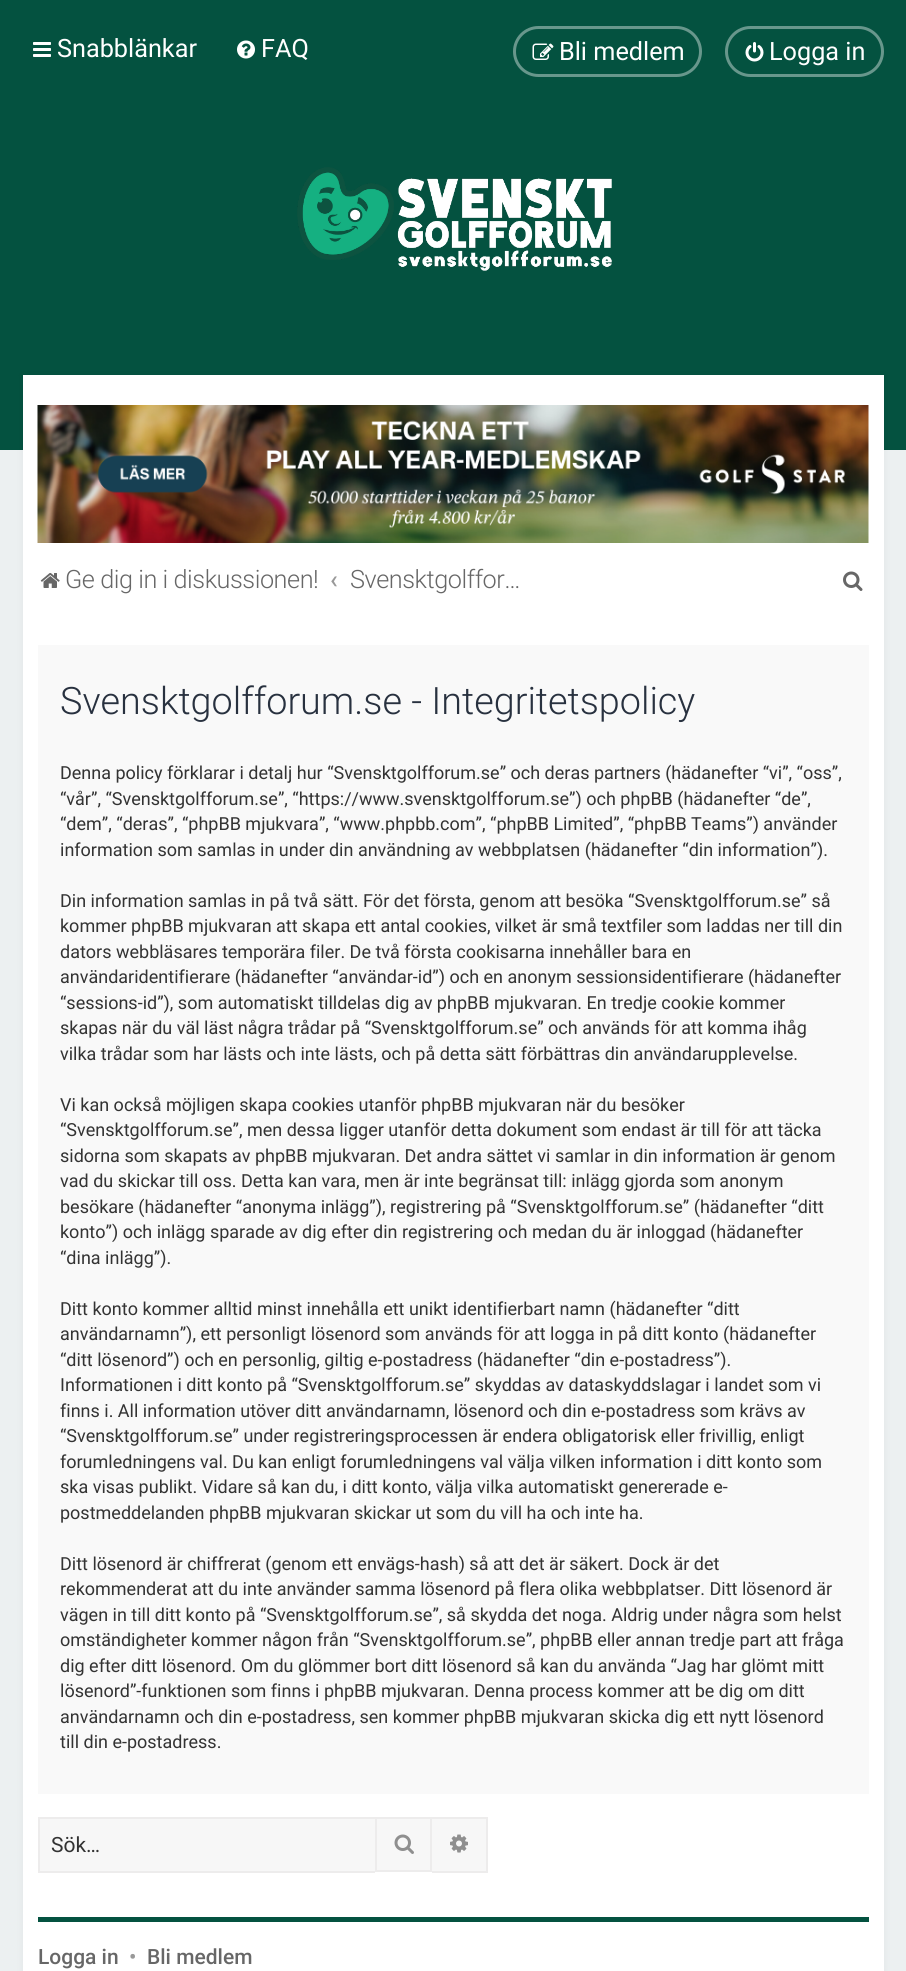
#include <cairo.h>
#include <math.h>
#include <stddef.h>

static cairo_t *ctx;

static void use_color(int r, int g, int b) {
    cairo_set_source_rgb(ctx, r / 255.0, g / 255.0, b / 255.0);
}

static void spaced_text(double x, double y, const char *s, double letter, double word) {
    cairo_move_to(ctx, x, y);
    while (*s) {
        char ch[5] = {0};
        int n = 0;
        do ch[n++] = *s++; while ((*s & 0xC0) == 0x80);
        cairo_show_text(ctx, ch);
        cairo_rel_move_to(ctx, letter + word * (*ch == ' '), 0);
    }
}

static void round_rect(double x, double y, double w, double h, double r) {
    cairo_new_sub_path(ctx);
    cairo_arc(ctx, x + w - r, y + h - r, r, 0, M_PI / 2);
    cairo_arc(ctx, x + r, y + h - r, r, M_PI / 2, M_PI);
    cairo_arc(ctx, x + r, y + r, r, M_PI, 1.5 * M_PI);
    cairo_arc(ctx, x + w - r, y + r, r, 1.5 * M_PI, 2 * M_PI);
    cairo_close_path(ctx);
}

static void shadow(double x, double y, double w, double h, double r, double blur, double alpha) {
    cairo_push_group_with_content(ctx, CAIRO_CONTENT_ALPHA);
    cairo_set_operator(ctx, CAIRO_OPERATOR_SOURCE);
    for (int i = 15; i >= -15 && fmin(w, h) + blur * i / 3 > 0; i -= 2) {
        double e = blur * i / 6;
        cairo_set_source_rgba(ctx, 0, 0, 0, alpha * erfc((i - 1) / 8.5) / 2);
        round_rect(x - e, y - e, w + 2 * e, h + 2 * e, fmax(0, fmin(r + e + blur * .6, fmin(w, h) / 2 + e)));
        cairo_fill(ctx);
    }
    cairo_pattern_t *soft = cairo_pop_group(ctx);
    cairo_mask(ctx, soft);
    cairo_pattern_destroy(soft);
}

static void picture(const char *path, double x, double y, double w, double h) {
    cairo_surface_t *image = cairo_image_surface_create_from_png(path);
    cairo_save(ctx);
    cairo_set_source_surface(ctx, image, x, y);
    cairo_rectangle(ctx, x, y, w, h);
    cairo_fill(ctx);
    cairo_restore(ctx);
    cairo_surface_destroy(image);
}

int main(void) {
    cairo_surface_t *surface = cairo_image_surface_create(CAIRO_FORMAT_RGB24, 906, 1971);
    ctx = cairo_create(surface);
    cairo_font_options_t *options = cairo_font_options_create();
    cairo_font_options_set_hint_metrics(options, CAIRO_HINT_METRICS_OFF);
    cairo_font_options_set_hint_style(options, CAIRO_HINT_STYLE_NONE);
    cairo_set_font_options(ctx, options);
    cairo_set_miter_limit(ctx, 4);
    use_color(236, 240, 241);
    cairo_paint(ctx);
    use_color(4, 82, 64);
    cairo_rectangle(ctx, 0, 0, 906, 450);
    cairo_fill(ctx);
    picture("img1.png", 297, 167, 315, 104);
    picture("img2.png", 33, 42, 18, 15);
    cairo_select_font_face(ctx, "Roboto", CAIRO_FONT_SLANT_NORMAL, CAIRO_FONT_WEIGHT_NORMAL);
    cairo_set_font_size(ctx, 25.25);
    use_color(255, 255, 255);
    cairo_move_to(ctx, 57, 57);
    cairo_show_text(ctx, "Snabblänkar");
    picture("img3.png", 237, 40, 18, 19);
    cairo_move_to(ctx, 261, 57);
    cairo_show_text(ctx, "FAQ");
    round_rect(514.5, 27.5, 186, 48, 24);
    use_color(104, 151, 140);
    cairo_set_line_width(ctx, 3);
    cairo_stroke(ctx);
    picture("img4.png", 532, 43, 22, 17);
    use_color(255, 255, 255);
    cairo_move_to(ctx, 559, 60);
    cairo_show_text(ctx, "Bli medlem");
    round_rect(726.5, 27.5, 156, 48, 24);
    use_color(104, 151, 140);
    cairo_stroke(ctx);
    picture("img5.png", 745, 42, 19, 20);
    use_color(255, 255, 255);
    cairo_move_to(ctx, 769, 60);
    cairo_show_text(ctx, "Logga in");
    use_color(0, 0, 0);
    shadow(23, 375, 861, 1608, 0, 4, 0.05);
    use_color(255, 255, 255);
    cairo_rectangle(ctx, 23, 375, 861, 1596);
    cairo_fill(ctx);
    picture("img6.png", 37, 405, 832, 138);
    picture("img7.png", 40, 573, 20, 15);
    cairo_select_font_face(ctx, "Roboto Light", CAIRO_FONT_SLANT_NORMAL, CAIRO_FONT_WEIGHT_NORMAL);
    use_color(103, 103, 103);
    spaced_text(65, 588, "Ge dig in i diskussionen!", -0.45, 0);
    cairo_select_font_face(ctx, "Roboto Medium", CAIRO_FONT_SLANT_NORMAL, CAIRO_FONT_WEIGHT_NORMAL);
    use_color(153, 153, 153);
    cairo_move_to(ctx, 330, 588);
    cairo_show_text(ctx, "‹");
    cairo_select_font_face(ctx, "Roboto Light", CAIRO_FONT_SLANT_NORMAL, CAIRO_FONT_WEIGHT_NORMAL);
    use_color(103, 103, 103);
    spaced_text(350, 588, "Svensktgolffor…", -0.45, 0);
    picture("img8.png", 843, 571, 20, 20);
    use_color(249, 249, 249);
    cairo_rectangle(ctx, 38, 645, 831, 1149);
    cairo_fill(ctx);
    cairo_set_font_size(ctx, 37.75);
    use_color(40, 49, 63);
    cairo_move_to(ctx, 60, 714);
    cairo_show_text(ctx, "Svensktgolfforum.se - Integritetspolicy");
    cairo_select_font_face(ctx, "Roboto", CAIRO_FONT_SLANT_NORMAL, CAIRO_FONT_WEIGHT_NORMAL);
    cairo_set_font_size(ctx, 18);
    use_color(51, 51, 51);
    cairo_move_to(ctx, 60, 779);
    cairo_show_text(ctx, "Denna policy förklarar i detalj hur “Svensktgolfforum.se” och deras partners (hädanefter “vi”, “oss”,");
    cairo_move_to(ctx, 60, 805);
    cairo_show_text(ctx, "“vår”, “Svensktgolfforum.se”, “https://www.svensktgolfforum.se”) och phpBB (hädanefter “de”,");
    cairo_move_to(ctx, 60, 830);
    cairo_show_text(ctx, "“dem”, “deras”, “phpBB mjukvara”, “www.phpbb.com”, “phpBB Limited”, “phpBB Teams”) använder");
    cairo_move_to(ctx, 60, 856);
    cairo_show_text(ctx, "information som samlas in under din användning av webbplatsen (hädanefter “din information”).");
    cairo_move_to(ctx, 60, 907);
    cairo_show_text(ctx, "Din information samlas in på två sätt. För det första, genom att besöka “Svensktgolfforum.se” så");
    cairo_move_to(ctx, 60, 932);
    cairo_show_text(ctx, "kommer phpBB mjukvaran att skapa ett antal cookies, vilket är små textfiler som laddas ner till din");
    cairo_move_to(ctx, 60, 958);
    cairo_show_text(ctx, "dators webbläsares temporära filer. De två första cookisarna innehåller bara en");
    cairo_move_to(ctx, 60, 983);
    cairo_show_text(ctx, "användaridentifierare (hädanefter “användar-id”) och en anonym sessionsidentifierare (hädanefter");
    cairo_move_to(ctx, 60, 1009);
    cairo_show_text(ctx, "“sessions-id”), som automatiskt tilldelas dig av phpBB mjukvaran. En tredje cookie kommer");
    cairo_move_to(ctx, 60, 1034);
    cairo_show_text(ctx, "skapas när du väl läst några trådar på “Svensktgolfforum.se” och används för att komma ihåg");
    cairo_move_to(ctx, 60, 1060);
    cairo_show_text(ctx, "vilka trådar som har lästs och inte lästs, och på detta sätt förbättras din användarupplevelse.");
    cairo_move_to(ctx, 60, 1111);
    cairo_show_text(ctx, "Vi kan också möjligen skapa cookies utanför phpBB mjukvaran när du besöker");
    cairo_move_to(ctx, 60, 1136);
    cairo_show_text(ctx, "“Svensktgolfforum.se”, men dessa ligger utanför detta dokument som endast är till för att täcka");
    cairo_move_to(ctx, 60, 1162);
    cairo_show_text(ctx, "sidorna som skapats av phpBB mjukvaran. Det andra sättet vi samlar in din information är genom");
    cairo_move_to(ctx, 60, 1187);
    cairo_show_text(ctx, "vad du skickar till oss. Detta kan vara, men är inte begränsat till: inlägg gjorda som anonym");
    cairo_move_to(ctx, 60, 1213);
    cairo_show_text(ctx, "besökare (hädanefter “anonyma inlägg”), registrering på “Svensktgolfforum.se” (hädanefter “ditt");
    cairo_move_to(ctx, 60, 1238);
    cairo_show_text(ctx, "konto”) och inlägg sparade av dig efter din registrering och medan du är inloggad (hädanefter");
    cairo_move_to(ctx, 60, 1264);
    cairo_show_text(ctx, "“dina inlägg”).");
    cairo_move_to(ctx, 60, 1315);
    cairo_show_text(ctx, "Ditt konto kommer alltid minst innehålla ett unikt identifierbart namn (hädanefter “ditt");
    cairo_move_to(ctx, 60, 1340);
    cairo_show_text(ctx, "användarnamn”), ett personligt lösenord som används för att logga in på ditt konto (hädanefter");
    cairo_move_to(ctx, 60, 1366);
    cairo_show_text(ctx, "“ditt lösenord”) och en personlig, giltig e-postadress (hädanefter “din e-postadress”).");
    cairo_move_to(ctx, 60, 1391);
    cairo_show_text(ctx, "Informationen i ditt konto på “Svensktgolfforum.se” skyddas av dataskyddslagar i landet som vi");
    cairo_move_to(ctx, 60, 1417);
    cairo_show_text(ctx, "finns i. All information utöver ditt användarnamn, lösenord och din e-postadress som krävs av");
    cairo_move_to(ctx, 60, 1442);
    cairo_show_text(ctx, "“Svensktgolfforum.se” under registreringsprocessen är endera obligatorisk eller frivillig, enligt");
    cairo_move_to(ctx, 60, 1468);
    cairo_show_text(ctx, "forumledningens val. Du kan enligt forumledningens val välja vilken information i ditt konto som");
    cairo_move_to(ctx, 60, 1493);
    cairo_show_text(ctx, "ska visas publikt. Vidare så kan du, i ditt konto, välja vilka automatiskt genererade e-");
    cairo_move_to(ctx, 60, 1519);
    cairo_show_text(ctx, "postmeddelanden phpBB mjukvaran skickar ut som du vill ha och inte ha.");
    cairo_move_to(ctx, 60, 1570);
    cairo_show_text(ctx, "Ditt lösenord är chiffrerat (genom ett envägs-hash) så att det är säkert. Dock är det");
    cairo_move_to(ctx, 60, 1595);
    cairo_show_text(ctx, "rekommenderat att du inte använder samma lösenord på flera olika webbplatser. Ditt lösenord är");
    cairo_move_to(ctx, 60, 1621);
    cairo_show_text(ctx, "vägen in till ditt konto på “Svensktgolfforum.se”, så skydda det noga. Aldrig under några som helst");
    cairo_move_to(ctx, 60, 1646);
    cairo_show_text(ctx, "omständigheter kommer någon från “Svensktgolfforum.se”, phpBB eller annan tredje part att fråga");
    cairo_move_to(ctx, 60, 1672);
    cairo_show_text(ctx, "dig efter ditt lösenord. Om du glömmer bort ditt lösenord så kan du använda “Jag har glömt mitt");
    cairo_move_to(ctx, 60, 1697);
    cairo_show_text(ctx, "lösenord”-funktionen som finns i phpBB mjukvaran. Denna process kommer att be dig om ditt");
    cairo_move_to(ctx, 60, 1723);
    cairo_show_text(ctx, "användarnamn och din e-postadress, sen kommer phpBB mjukvaran skicka dig ett nytt lösenord");
    cairo_move_to(ctx, 60, 1748);
    cairo_show_text(ctx, "till din e-postadress.");
    use_color(247, 247, 247);
    cairo_rectangle(ctx, 40, 1819, 335, 52);
    cairo_fill(ctx);
    use_color(237, 236, 236);
    cairo_rectangle(ctx, 38, 1817, 337, 2);
    cairo_fill(ctx);
    cairo_rectangle(ctx, 38, 1871, 337, 2);
    cairo_fill(ctx);
    cairo_rectangle(ctx, 38, 1817, 2, 55);
    cairo_fill(ctx);
    cairo_set_font_size(ctx, 21);
    use_color(51, 51, 51);
    cairo_move_to(ctx, 51, 1852);
    cairo_show_text(ctx, "Sök…");
    use_color(247, 247, 247);
    cairo_rectangle(ctx, 376, 1818, 55, 53);
    cairo_fill_preserve(ctx);
    use_color(237, 236, 236);
    cairo_set_line_width(ctx, 2);
    cairo_stroke(ctx);
    picture("img9.png", 394, 1834, 20, 20);
    use_color(247, 247, 247);
    cairo_rectangle(ctx, 432, 1819, 54, 52);
    cairo_fill(ctx);
    use_color(237, 236, 236);
    cairo_rectangle(ctx, 432, 1817, 56, 2);
    cairo_fill(ctx);
    cairo_rectangle(ctx, 486, 1817, 2, 55);
    cairo_fill(ctx);
    cairo_rectangle(ctx, 432, 1871, 56, 2);
    cairo_fill(ctx);
    picture("img10.png", 450, 1834, 18, 19);
    use_color(4, 82, 64);
    cairo_rectangle(ctx, 38, 1917, 831, 5);
    cairo_fill(ctx);
    cairo_select_font_face(ctx, "Roboto Medium", CAIRO_FONT_SLANT_NORMAL, CAIRO_FONT_WEIGHT_NORMAL);
    use_color(103, 103, 103);
    cairo_move_to(ctx, 38, 1964);
    cairo_show_text(ctx, "Logga in");
    use_color(153, 153, 153);
    cairo_move_to(ctx, 129, 1964);
    cairo_show_text(ctx, "•");
    use_color(103, 103, 103);
    cairo_move_to(ctx, 147, 1964);
    cairo_show_text(ctx, "Bli medlem");
    cairo_surface_write_to_png(surface, "result.png");
    cairo_font_options_destroy(options);
    cairo_destroy(ctx);
    cairo_surface_destroy(surface);
    return 0;
}
